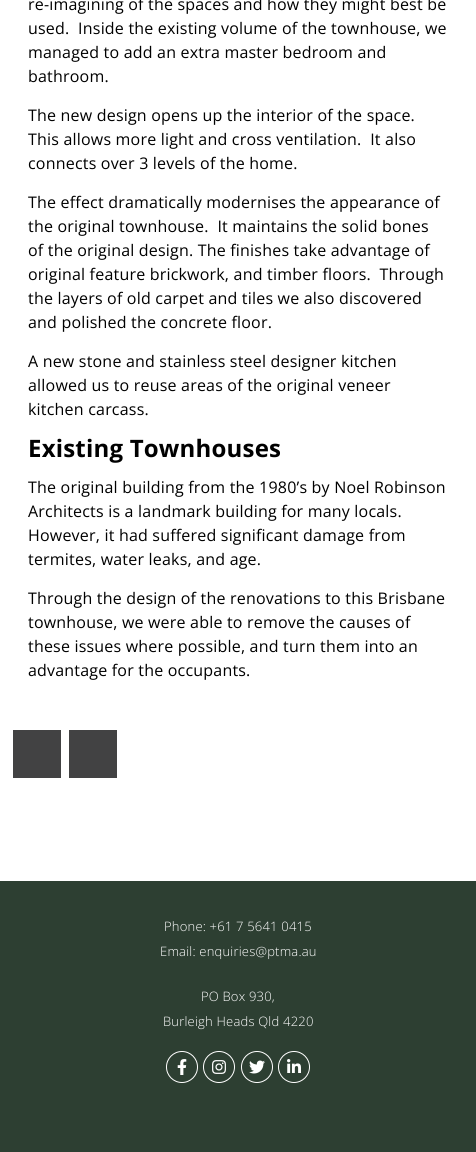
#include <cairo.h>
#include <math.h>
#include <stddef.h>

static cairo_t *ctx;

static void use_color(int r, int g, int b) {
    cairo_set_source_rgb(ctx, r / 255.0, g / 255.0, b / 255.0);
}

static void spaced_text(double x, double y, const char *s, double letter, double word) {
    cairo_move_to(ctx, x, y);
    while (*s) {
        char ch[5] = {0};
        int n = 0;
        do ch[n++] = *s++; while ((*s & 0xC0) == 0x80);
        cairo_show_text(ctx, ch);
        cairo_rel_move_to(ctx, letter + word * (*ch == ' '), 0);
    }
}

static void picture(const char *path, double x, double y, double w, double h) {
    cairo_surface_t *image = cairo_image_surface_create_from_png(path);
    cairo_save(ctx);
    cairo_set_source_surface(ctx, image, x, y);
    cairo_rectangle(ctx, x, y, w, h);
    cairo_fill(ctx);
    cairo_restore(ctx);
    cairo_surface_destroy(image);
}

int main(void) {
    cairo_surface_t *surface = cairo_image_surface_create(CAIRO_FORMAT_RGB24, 476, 1152);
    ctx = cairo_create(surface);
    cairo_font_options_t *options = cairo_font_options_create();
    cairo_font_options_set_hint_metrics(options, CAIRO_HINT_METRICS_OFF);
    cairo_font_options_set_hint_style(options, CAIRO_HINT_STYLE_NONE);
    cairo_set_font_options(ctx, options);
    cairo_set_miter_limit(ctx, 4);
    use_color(255, 255, 255);
    cairo_paint(ctx);
    cairo_select_font_face(ctx, "Open Sans", CAIRO_FONT_SLANT_NORMAL, CAIRO_FONT_WEIGHT_NORMAL);
    cairo_set_font_size(ctx, 16);
    use_color(0, 0, 0);
    spaced_text(28, 10, "re-imagining of the spaces and how they might best be", 0.2, 0);
    spaced_text(28, 34, "used.  Inside the existing volume of the townhouse, we", 0.2, 0);
    spaced_text(28, 58, "managed to add an extra master bedroom and", 0.2, 0);
    spaced_text(28, 82, "bathroom.", 0.2, 0);
    spaced_text(28, 121, "The new design opens up the interior of the space.", 0.2, 0);
    spaced_text(28, 145, "This allows more light and cross ventilation.  It also", 0.2, 0);
    spaced_text(28, 169, "connects over 3 levels of the home.", 0.2, 0);
    spaced_text(28, 208, "The effect dramatically modernises the appearance of", 0.2, 0);
    spaced_text(28, 232, "the original townhouse.  It maintains the solid bones", 0.2, 0);
    spaced_text(28, 256, "of the original design. The finishes take advantage of", 0.2, 0);
    spaced_text(28, 280, "original feature brickwork, and timber floors.  Through", 0.2, 0);
    spaced_text(28, 304, "the layers of old carpet and tiles we also discovered", 0.2, 0);
    spaced_text(28, 328, "and polished the concrete floor.", 0.2, 0);
    spaced_text(28, 367, "A new stone and stainless steel designer kitchen", 0.2, 0);
    spaced_text(28, 391, "allowed us to reuse areas of the original veneer", 0.2, 0);
    spaced_text(28, 415, "kitchen carcass.", 0.2, 0);
    cairo_select_font_face(ctx, "Open Sans", CAIRO_FONT_SLANT_NORMAL, CAIRO_FONT_WEIGHT_BOLD);
    cairo_set_font_size(ctx, 24);
    spaced_text(28, 457, "Existing Townhouses", 0.2, 0);
    cairo_select_font_face(ctx, "Open Sans", CAIRO_FONT_SLANT_NORMAL, CAIRO_FONT_WEIGHT_NORMAL);
    cairo_set_font_size(ctx, 16);
    spaced_text(28, 493, "The original building from the 1980’s by Noel Robinson", 0.2, 0);
    spaced_text(28, 517, "Architects is a landmark building for many locals.", 0.2, 0);
    spaced_text(28, 541, "However, it had suffered significant damage from", 0.2, 0);
    spaced_text(28, 565, "termites, water leaks, and age.", 0.2, 0);
    spaced_text(28, 604, "Through the design of the renovations to this Brisbane", 0.2, 0);
    spaced_text(28, 628, "townhouse, we were able to remove the causes of", 0.2, 0);
    spaced_text(28, 652, "these issues where possible, and turn them into an", 0.2, 0);
    spaced_text(28, 676, "advantage for the occupants.", 0.2, 0);
    use_color(66, 66, 67);
    cairo_rectangle(ctx, 13, 730, 48, 48);
    cairo_fill(ctx);
    cairo_rectangle(ctx, 69, 730, 48, 48);
    cairo_fill(ctx);
    use_color(45, 63, 50);
    cairo_rectangle(ctx, 0, 881, 476, 271);
    cairo_fill(ctx);
    cairo_select_font_face(ctx, "Open Sans Light", CAIRO_FONT_SLANT_NORMAL, CAIRO_FONT_WEIGHT_NORMAL);
    cairo_set_font_size(ctx, 13);
    use_color(255, 255, 255);
    spaced_text(164, 931, "Phone: +61 7 5641 0415", 0.2, 0);
    spaced_text(160, 956, "Email: enquiries@ptma.au", 0.2, 0);
    spaced_text(201, 1001, "PO Box 930,", 0.2, 0);
    spaced_text(163, 1026, "Burleigh Heads Qld 4220", 0.2, 0);
    cairo_new_path(ctx);
    cairo_arc(ctx, 182, 1067, 15.5, 0, 2 * M_PI);
    cairo_set_line_width(ctx, 1);
    cairo_stroke(ctx);
    picture("img1.png", 177, 1059, 10, 16);
    cairo_arc(ctx, 219, 1067, 15.5, 0, 2 * M_PI);
    cairo_stroke(ctx);
    picture("img2.png", 212, 1060, 14, 14);
    cairo_arc(ctx, 257, 1067, 15.5, 0, 2 * M_PI);
    cairo_stroke(ctx);
    picture("img3.png", 249, 1060, 16, 14);
    cairo_arc(ctx, 294, 1067, 15.5, 0, 2 * M_PI);
    cairo_stroke(ctx);
    picture("img4.png", 287, 1059, 14, 14);
    cairo_surface_write_to_png(surface, "result.png");
    cairo_font_options_destroy(options);
    cairo_destroy(ctx);
    cairo_surface_destroy(surface);
    return 0;
}
